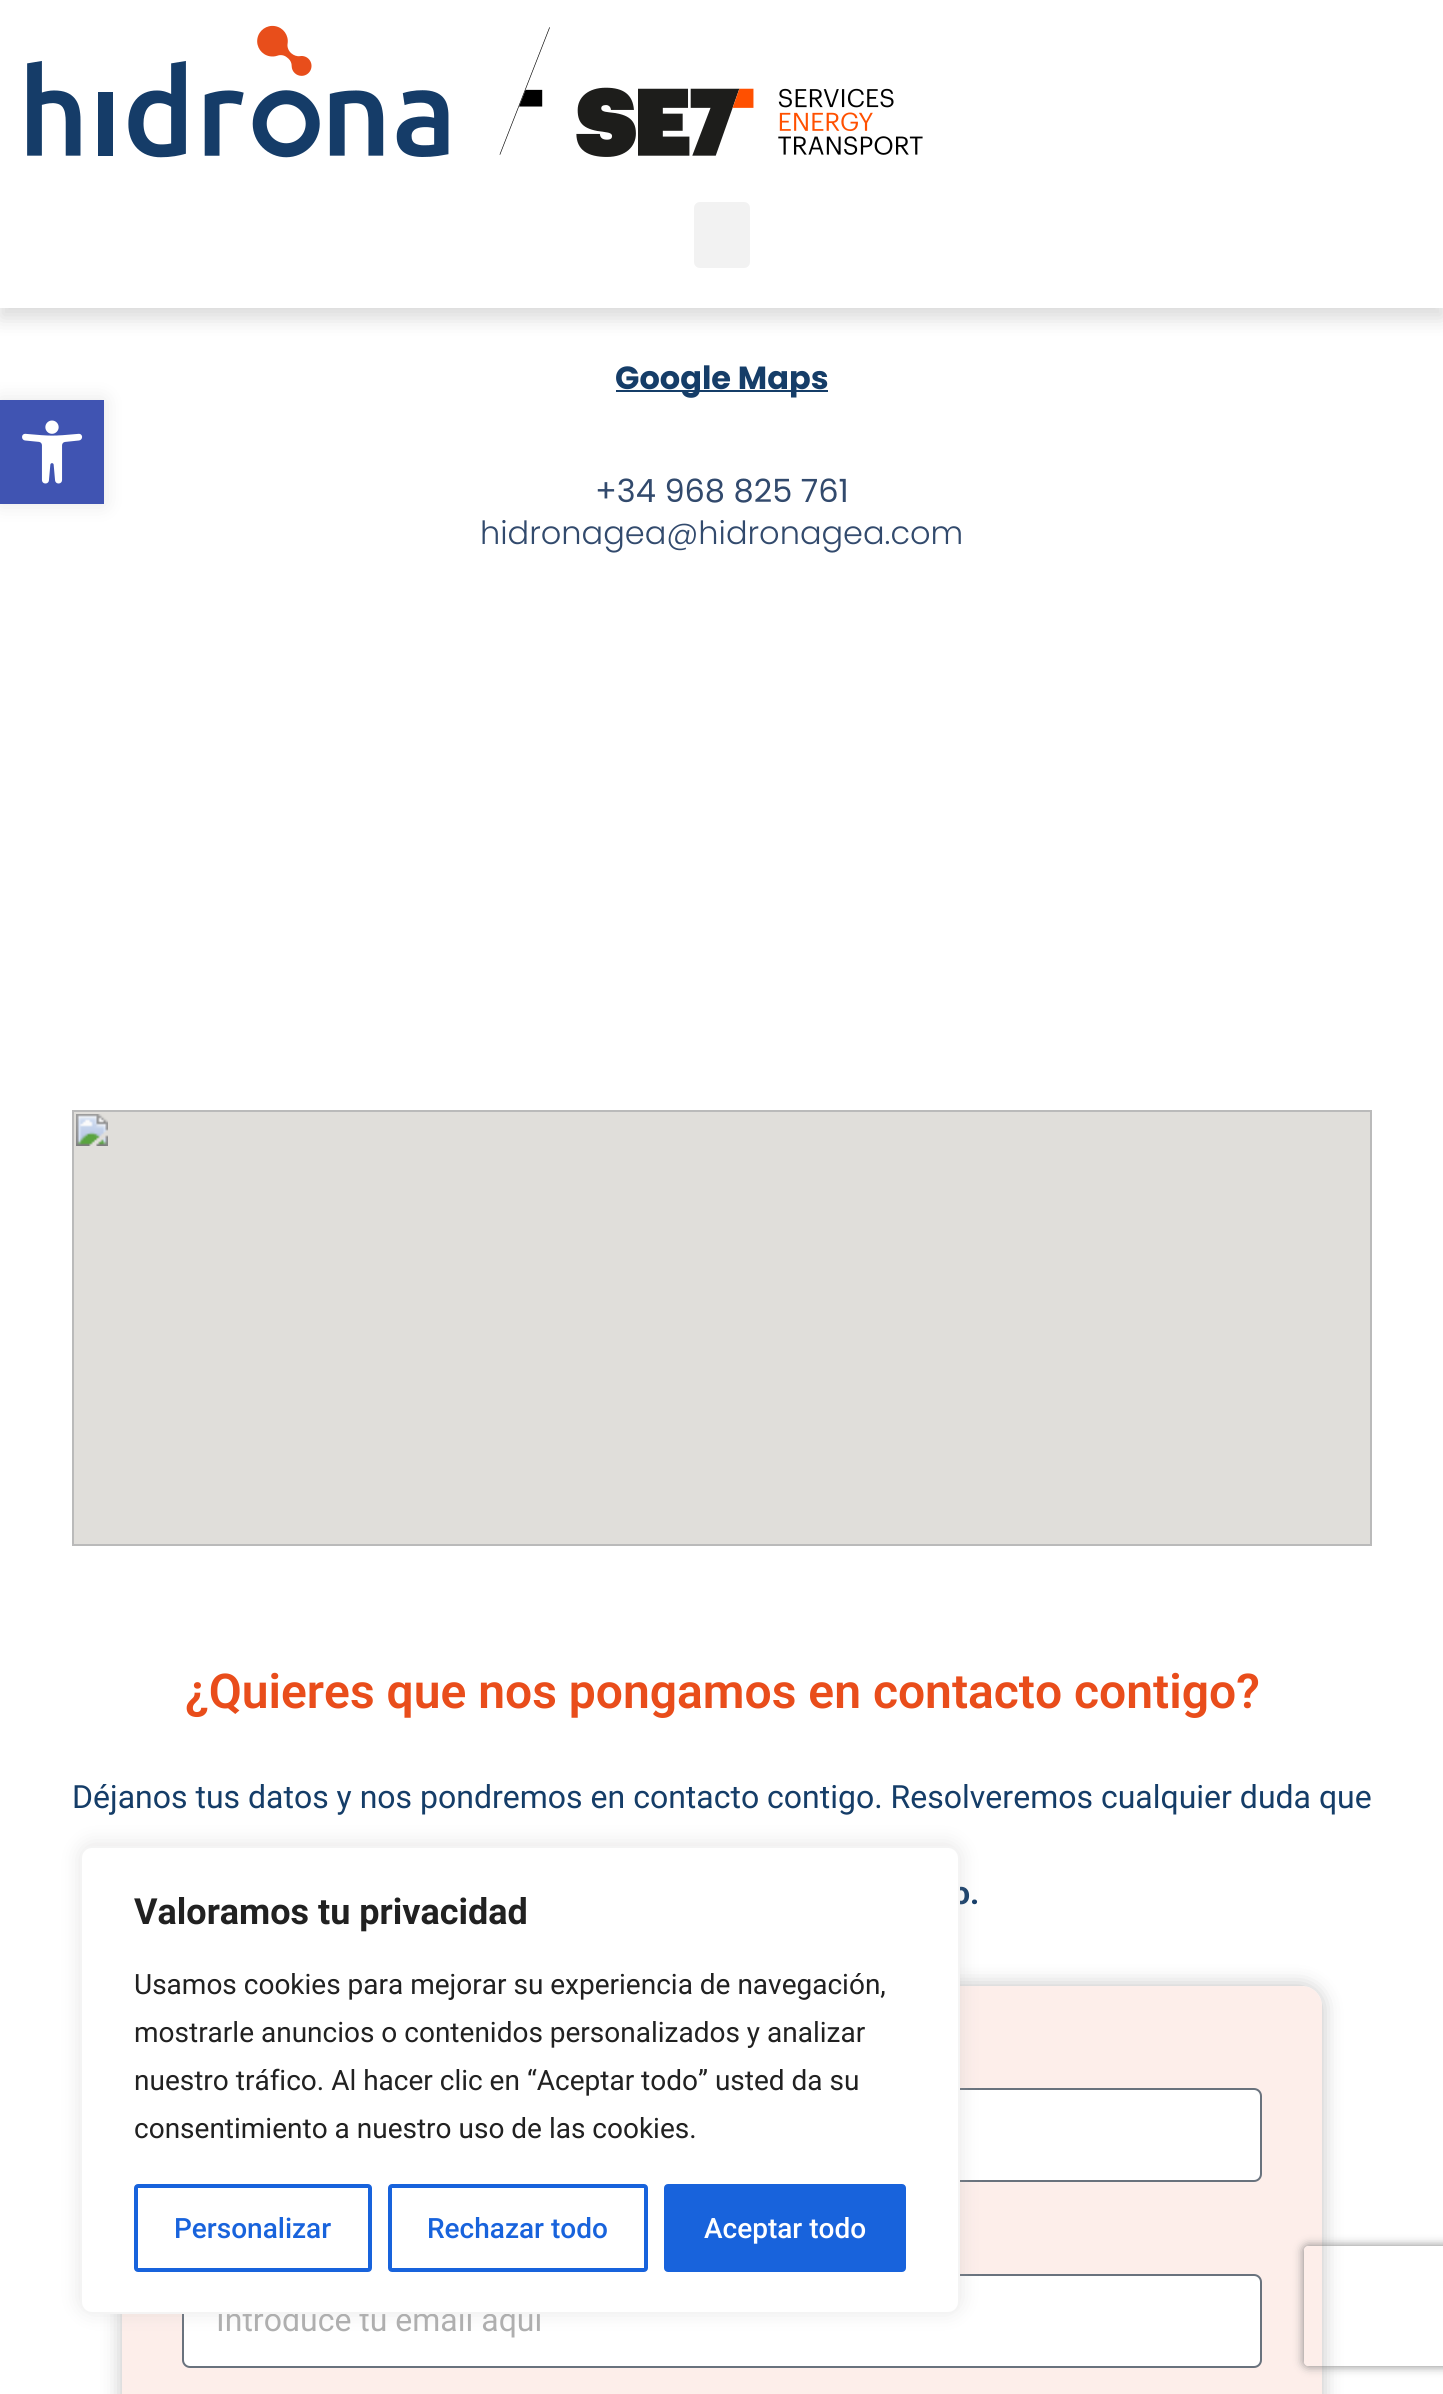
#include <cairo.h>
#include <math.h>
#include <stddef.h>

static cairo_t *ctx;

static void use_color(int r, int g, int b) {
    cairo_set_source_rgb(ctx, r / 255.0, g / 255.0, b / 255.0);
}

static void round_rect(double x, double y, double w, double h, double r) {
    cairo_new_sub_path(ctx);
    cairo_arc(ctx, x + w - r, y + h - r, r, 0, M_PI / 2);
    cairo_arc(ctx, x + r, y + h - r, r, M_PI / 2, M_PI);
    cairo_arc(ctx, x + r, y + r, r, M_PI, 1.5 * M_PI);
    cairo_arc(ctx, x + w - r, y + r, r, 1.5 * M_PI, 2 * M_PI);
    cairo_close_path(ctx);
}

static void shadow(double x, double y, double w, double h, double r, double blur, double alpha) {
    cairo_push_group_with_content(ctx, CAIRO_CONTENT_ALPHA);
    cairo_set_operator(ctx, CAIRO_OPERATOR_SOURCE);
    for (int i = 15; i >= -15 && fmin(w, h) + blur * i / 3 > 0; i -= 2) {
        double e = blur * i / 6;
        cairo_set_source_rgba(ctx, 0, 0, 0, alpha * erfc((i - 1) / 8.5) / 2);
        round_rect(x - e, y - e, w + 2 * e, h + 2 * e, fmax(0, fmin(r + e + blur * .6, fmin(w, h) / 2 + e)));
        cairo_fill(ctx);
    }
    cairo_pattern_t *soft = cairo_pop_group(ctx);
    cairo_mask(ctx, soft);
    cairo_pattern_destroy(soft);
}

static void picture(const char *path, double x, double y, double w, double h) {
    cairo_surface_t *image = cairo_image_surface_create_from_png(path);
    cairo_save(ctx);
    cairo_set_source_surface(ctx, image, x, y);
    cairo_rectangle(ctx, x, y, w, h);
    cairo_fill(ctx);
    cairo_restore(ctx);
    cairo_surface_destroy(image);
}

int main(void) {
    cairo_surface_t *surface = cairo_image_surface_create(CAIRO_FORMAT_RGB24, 1443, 2394);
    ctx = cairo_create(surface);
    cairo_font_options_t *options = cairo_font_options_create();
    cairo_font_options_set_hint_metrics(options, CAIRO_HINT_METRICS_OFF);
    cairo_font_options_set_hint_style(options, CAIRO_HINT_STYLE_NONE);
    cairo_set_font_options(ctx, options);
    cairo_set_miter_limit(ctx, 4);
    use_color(255, 255, 255);
    cairo_paint(ctx);
    use_color(0, 0, 0);
    shadow(0, 10, 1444, 308, 0, 10, 0.15);
    use_color(255, 255, 255);
    cairo_rectangle(ctx, 0, 0, 1443, 308);
    cairo_fill(ctx);
    picture("img1.png", 27, 25, 896, 133);
    use_color(242, 242, 242);
    round_rect(694, 202, 56, 66, 6);
    cairo_fill(ctx);
    use_color(0, 0, 0);
    shadow(0, 400, 104, 104, 0, 10, 0.1);
    use_color(64, 84, 178);
    cairo_rectangle(ctx, 0, 400, 104, 104);
    cairo_fill(ctx);
    picture("img2.png", 22, 420, 61, 64);
    use_color(21, 61, 104);
    cairo_rectangle(ctx, 616, 390, 212, 2);
    cairo_fill(ctx);
    cairo_select_font_face(ctx, "Poppins", CAIRO_FONT_SLANT_NORMAL, CAIRO_FONT_WEIGHT_BOLD);
    cairo_set_font_size(ctx, 32);
    cairo_move_to(ctx, 615, 389);
    cairo_show_text(ctx, "Google Maps");
    cairo_select_font_face(ctx, "Poppins", CAIRO_FONT_SLANT_NORMAL, CAIRO_FONT_WEIGHT_NORMAL);
    use_color(50, 74, 109);
    cairo_move_to(ctx, 595, 502);
    cairo_show_text(ctx, "+34 968 825 761");
    cairo_select_font_face(ctx, "Poppins Light", CAIRO_FONT_SLANT_NORMAL, CAIRO_FONT_WEIGHT_NORMAL);
    cairo_move_to(ctx, 480, 544);
    cairo_show_text(ctx, "hidronagea@hidronagea.com");
    picture("img3.png", 72, 1110, 1300, 436);
    cairo_select_font_face(ctx, "Roboto SemiBold", CAIRO_FONT_SLANT_NORMAL, CAIRO_FONT_WEIGHT_NORMAL);
    cairo_set_font_size(ctx, 48);
    use_color(233, 77, 27);
    cairo_move_to(ctx, 185, 1708);
    cairo_show_text(ctx, "¿Quieres que nos pongamos en contacto contigo?");
    cairo_select_font_face(ctx, "Roboto", CAIRO_FONT_SLANT_NORMAL, CAIRO_FONT_WEIGHT_NORMAL);
    cairo_set_font_size(ctx, 32);
    use_color(21, 61, 104);
    cairo_move_to(ctx, 72, 1808);
    cairo_show_text(ctx, "Déjanos tus datos y nos pondremos en contacto contigo. Resolveremos cualquier duda que");
    cairo_select_font_face(ctx, "Roboto", CAIRO_FONT_SLANT_NORMAL, CAIRO_FONT_WEIGHT_BOLD);
    cairo_move_to(ctx, 952, 1904);
    cairo_show_text(ctx, "o.");
    cairo_save(ctx);
    cairo_set_fill_rule(ctx, CAIRO_FILL_RULE_EVEN_ODD);
    cairo_new_path(ctx);
    cairo_move_to(ctx, 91, 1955);
    cairo_line_to(ctx, 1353, 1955);
    cairo_line_to(ctx, 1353, 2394);
    cairo_line_to(ctx, 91, 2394);
    cairo_close_path(ctx);
    cairo_move_to(ctx, 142, 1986);
    cairo_line_to(ctx, 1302, 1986);
    cairo_curve_to(ctx, 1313, 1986, 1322, 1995, 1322, 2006);
    cairo_line_to(ctx, 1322, 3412);
    cairo_curve_to(ctx, 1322, 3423, 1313, 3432, 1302, 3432);
    cairo_line_to(ctx, 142, 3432);
    cairo_curve_to(ctx, 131, 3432, 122, 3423, 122, 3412);
    cairo_line_to(ctx, 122, 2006);
    cairo_curve_to(ctx, 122, 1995, 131, 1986, 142, 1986);
    cairo_close_path(ctx);
    cairo_clip(ctx);
    use_color(0, 0, 0);
    shadow(122, 1986, 1200, 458, 20, 10, 0.25);
    cairo_restore(ctx);
    cairo_set_source_rgba(ctx, 0.914, 0.302, 0.106, 0.09);
    round_rect(122, 1986, 1200, 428, 20);
    cairo_fill(ctx);
    use_color(255, 255, 255);
    round_rect(183, 2089, 1078, 92, 7);
    cairo_fill_preserve(ctx);
    use_color(105, 114, 125);
    cairo_stroke(ctx);
    use_color(255, 255, 255);
    round_rect(183, 2275, 1078, 92, 7);
    cairo_fill_preserve(ctx);
    use_color(105, 114, 125);
    cairo_stroke(ctx);
    cairo_select_font_face(ctx, "Roboto", CAIRO_FONT_SLANT_NORMAL, CAIRO_FONT_WEIGHT_NORMAL);
    use_color(175, 175, 175);
    cairo_move_to(ctx, 216, 2331);
    cairo_show_text(ctx, "Introduce tu email aquí");
    cairo_save(ctx);
    cairo_set_fill_rule(ctx, CAIRO_FILL_RULE_EVEN_ODD);
    cairo_new_path(ctx);
    cairo_move_to(ctx, 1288, 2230);
    cairo_line_to(ctx, 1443, 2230);
    cairo_line_to(ctx, 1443, 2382);
    cairo_line_to(ctx, 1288, 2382);
    cairo_close_path(ctx);
    cairo_move_to(ctx, 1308, 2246);
    cairo_line_to(ctx, 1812, 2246);
    cairo_curve_to(ctx, 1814, 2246, 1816, 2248, 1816, 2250);
    cairo_line_to(ctx, 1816, 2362);
    cairo_curve_to(ctx, 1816, 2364, 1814, 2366, 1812, 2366);
    cairo_line_to(ctx, 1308, 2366);
    cairo_curve_to(ctx, 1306, 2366, 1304, 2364, 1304, 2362);
    cairo_line_to(ctx, 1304, 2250);
    cairo_curve_to(ctx, 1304, 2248, 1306, 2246, 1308, 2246);
    cairo_close_path(ctx);
    cairo_clip(ctx);
    use_color(128, 128, 128);
    shadow(1304, 2246, 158, 120, 4, 5, 1);
    cairo_restore(ctx);
    use_color(172, 171, 171);
    shadow(80, 1844, 880, 468, 12, 10, 0.3);
    use_color(255, 255, 255);
    round_rect(81, 1847, 878, 466, 11);
    cairo_fill_preserve(ctx);
    use_color(244, 244, 244);
    cairo_stroke(ctx);
    cairo_select_font_face(ctx, "Roboto", CAIRO_FONT_SLANT_NORMAL, CAIRO_FONT_WEIGHT_BOLD);
    cairo_set_font_size(ctx, 36);
    use_color(33, 33, 33);
    cairo_move_to(ctx, 134, 1924);
    cairo_show_text(ctx, "Valoramos tu privacidad");
    cairo_select_font_face(ctx, "Roboto", CAIRO_FONT_SLANT_NORMAL, CAIRO_FONT_WEIGHT_NORMAL);
    cairo_set_font_size(ctx, 28);
    cairo_move_to(ctx, 134, 1994);
    cairo_show_text(ctx, "Usamos cookies para mejorar su experiencia de navegación,");
    cairo_move_to(ctx, 134, 2042);
    cairo_show_text(ctx, "mostrarle anuncios o contenidos personalizados y analizar");
    cairo_move_to(ctx, 134, 2090);
    cairo_show_text(ctx, "nuestro tráfico. Al hacer clic en “Aceptar todo” usted da su");
    cairo_move_to(ctx, 134, 2138);
    cairo_show_text(ctx, "consentimiento a nuestro uso de las cookies.");
    round_rect(136, 2186, 234, 84, 2);
    use_color(24, 99, 220);
    cairo_set_line_width(ctx, 4);
    cairo_stroke(ctx);
    cairo_select_font_face(ctx, "Roboto Medium", CAIRO_FONT_SLANT_NORMAL, CAIRO_FONT_WEIGHT_NORMAL);
    cairo_move_to(ctx, 174, 2238);
    cairo_show_text(ctx, "Personalizar");
    round_rect(390, 2186, 256, 84, 2);
    cairo_stroke(ctx);
    cairo_move_to(ctx, 427, 2238);
    cairo_show_text(ctx, "Rechazar todo");
    round_rect(666, 2186, 238, 84, 2);
    cairo_fill_preserve(ctx);
    cairo_stroke(ctx);
    use_color(255, 255, 255);
    cairo_move_to(ctx, 704, 2238);
    cairo_show_text(ctx, "Aceptar todo");
    cairo_surface_write_to_png(surface, "result.png");
    cairo_font_options_destroy(options);
    cairo_destroy(ctx);
    cairo_surface_destroy(surface);
    return 0;
}
